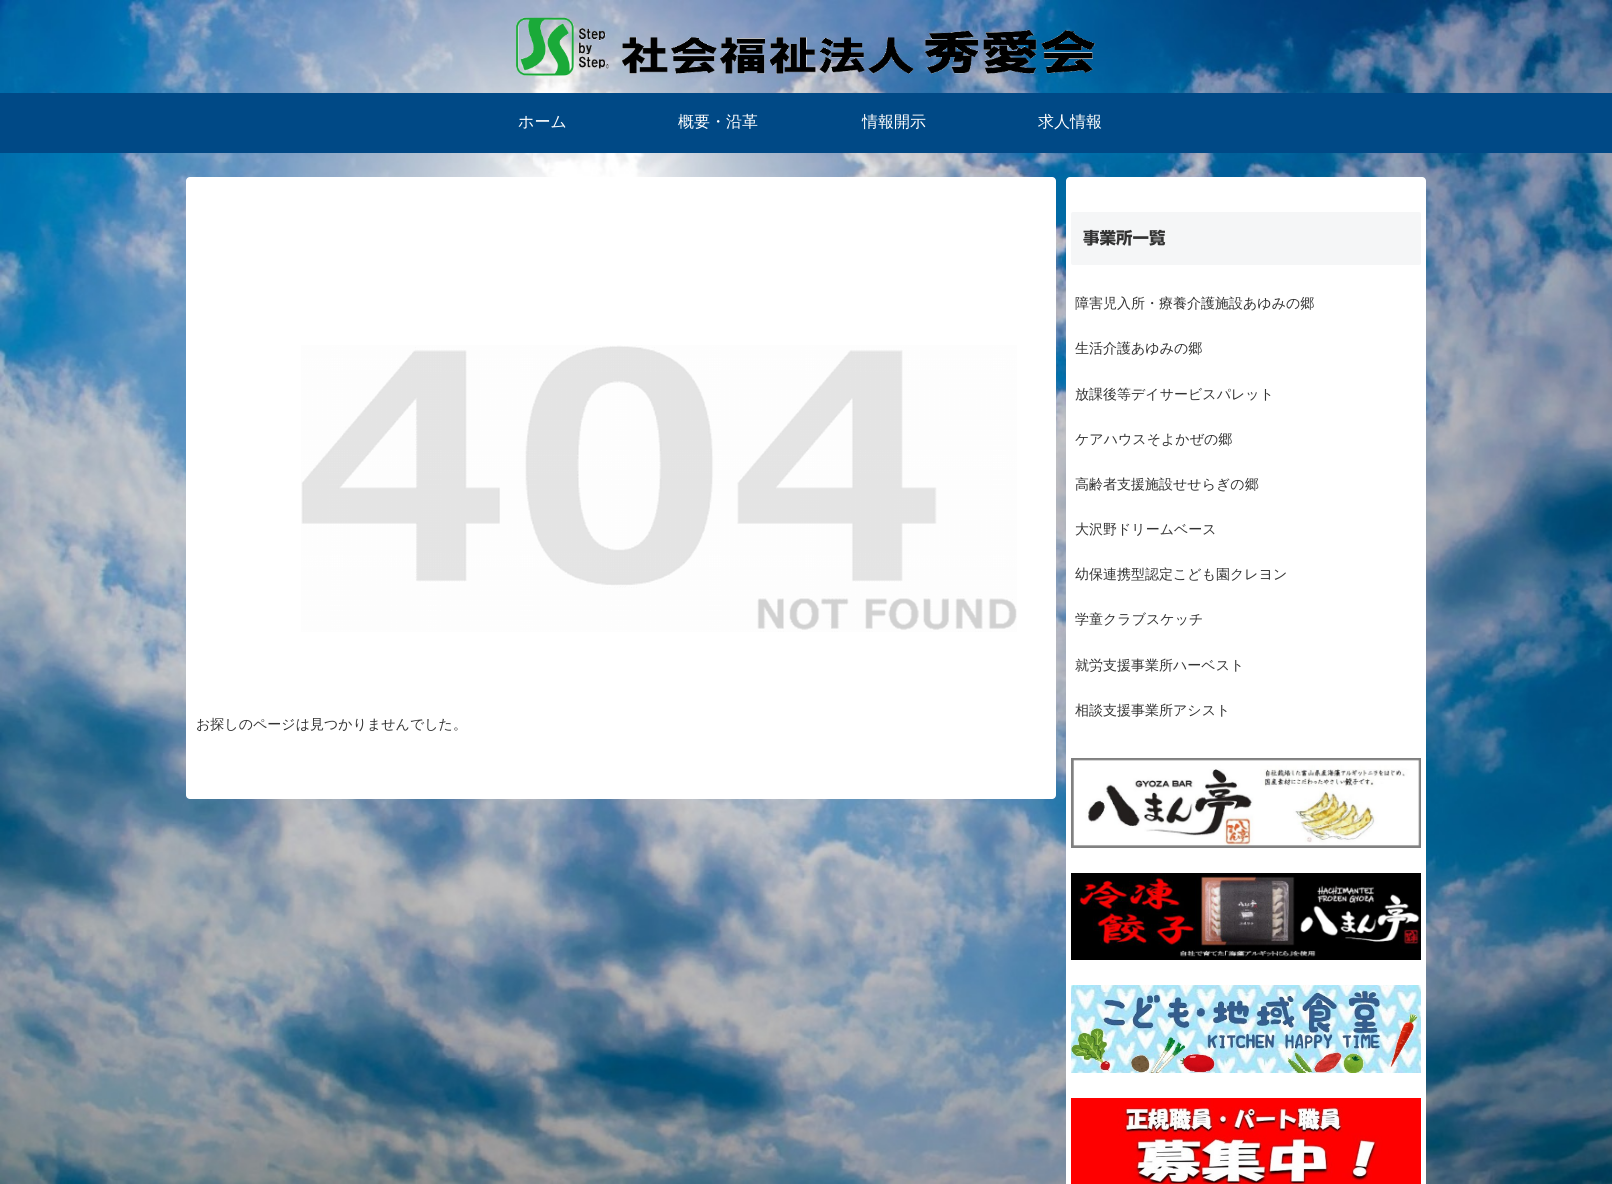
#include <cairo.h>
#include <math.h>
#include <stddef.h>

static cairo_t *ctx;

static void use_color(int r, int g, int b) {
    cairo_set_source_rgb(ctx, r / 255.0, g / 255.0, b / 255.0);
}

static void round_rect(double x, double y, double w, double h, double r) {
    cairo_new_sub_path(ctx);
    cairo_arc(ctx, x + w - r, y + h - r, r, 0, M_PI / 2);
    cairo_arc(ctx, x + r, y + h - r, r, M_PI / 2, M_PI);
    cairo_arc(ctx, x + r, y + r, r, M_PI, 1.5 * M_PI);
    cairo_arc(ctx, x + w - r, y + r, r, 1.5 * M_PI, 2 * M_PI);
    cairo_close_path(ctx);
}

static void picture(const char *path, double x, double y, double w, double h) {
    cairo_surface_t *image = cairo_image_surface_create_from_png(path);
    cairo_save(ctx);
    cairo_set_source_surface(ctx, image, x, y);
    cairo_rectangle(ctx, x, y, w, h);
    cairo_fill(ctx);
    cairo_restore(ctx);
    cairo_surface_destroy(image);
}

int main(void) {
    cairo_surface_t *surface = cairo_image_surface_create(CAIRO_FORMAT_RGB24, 1612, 1184);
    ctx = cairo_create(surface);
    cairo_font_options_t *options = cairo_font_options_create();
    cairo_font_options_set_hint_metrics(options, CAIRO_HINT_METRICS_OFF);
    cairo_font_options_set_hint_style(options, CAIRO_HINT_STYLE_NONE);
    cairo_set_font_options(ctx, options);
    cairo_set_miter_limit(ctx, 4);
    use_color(255, 255, 255);
    cairo_paint(ctx);
    picture("img1.png", 0, 153, 1612, 1031);
    use_color(0, 73, 134);
    cairo_rectangle(ctx, 0, 93, 1612, 60);
    cairo_fill(ctx);
    picture("img2.png", 0, 0, 1612, 93);
    picture("img3.png", 516, 17, 580, 59);
    cairo_select_font_face(ctx, "WenQuanYi Zen Hei Medium", CAIRO_FONT_SLANT_NORMAL, CAIRO_FONT_WEIGHT_NORMAL);
    cairo_set_font_size(ctx, 16);
    use_color(255, 255, 255);
    cairo_move_to(ctx, 518, 127);
    cairo_show_text(ctx, "ホーム");
    cairo_move_to(ctx, 678, 127);
    cairo_show_text(ctx, "概要・沿革");
    cairo_move_to(ctx, 862, 127);
    cairo_show_text(ctx, "情報開示");
    cairo_move_to(ctx, 1038, 127);
    cairo_show_text(ctx, "求人情報");
    round_rect(1066, 177, 360, 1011, 4);
    cairo_fill(ctx);
    use_color(245, 246, 247);
    round_rect(1071, 212, 350, 53, 2);
    cairo_fill(ctx);
    cairo_select_font_face(ctx, "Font", CAIRO_FONT_SLANT_NORMAL, CAIRO_FONT_WEIGHT_BOLD);
    cairo_set_font_size(ctx, 16.5);
    use_color(51, 51, 51);
    cairo_move_to(ctx, 1083, 244);
    cairo_show_text(ctx, "事業所一覧");
    cairo_select_font_face(ctx, "WenQuanYi Zen Hei Medium", CAIRO_FONT_SLANT_NORMAL, CAIRO_FONT_WEIGHT_NORMAL);
    cairo_set_font_size(ctx, 14);
    cairo_move_to(ctx, 1075, 308);
    cairo_show_text(ctx, "障害児入所・療養介護施設あゆみの郷");
    cairo_move_to(ctx, 1075, 353);
    cairo_show_text(ctx, "生活介護あゆみの郷");
    cairo_move_to(ctx, 1075, 399);
    cairo_show_text(ctx, "放課後等デイサービスパレット");
    cairo_move_to(ctx, 1075, 444);
    cairo_show_text(ctx, "ケアハウスそよかぜの郷");
    cairo_move_to(ctx, 1075, 489);
    cairo_show_text(ctx, "高齢者支援施設せせらぎの郷");
    cairo_move_to(ctx, 1075, 534);
    cairo_show_text(ctx, "大沢野ドリームベース");
    cairo_move_to(ctx, 1075, 579);
    cairo_show_text(ctx, "幼保連携型認定こども園クレヨン");
    cairo_move_to(ctx, 1075, 624);
    cairo_show_text(ctx, "学童クラブスケッチ");
    cairo_move_to(ctx, 1075, 670);
    cairo_show_text(ctx, "就労支援事業所ハーベスト");
    cairo_move_to(ctx, 1075, 715);
    cairo_show_text(ctx, "相談支援事業所アシスト");
    picture("img4.png", 1071, 758, 350, 90);
    picture("img5.png", 1071, 873, 350, 87);
    picture("img6.png", 1071, 985, 350, 88);
    picture("img7.png", 1071, 1098, 350, 86);
    use_color(255, 255, 255);
    round_rect(186, 177, 870, 622, 4);
    cairo_fill(ctx);
    picture("img8.png", 301, 345, 716, 287);
    use_color(51, 51, 51);
    cairo_move_to(ctx, 196, 729);
    cairo_show_text(ctx, "お探しのページは見つかりませんでした。");
    cairo_surface_write_to_png(surface, "result.png");
    cairo_font_options_destroy(options);
    cairo_destroy(ctx);
    cairo_surface_destroy(surface);
    return 0;
}
